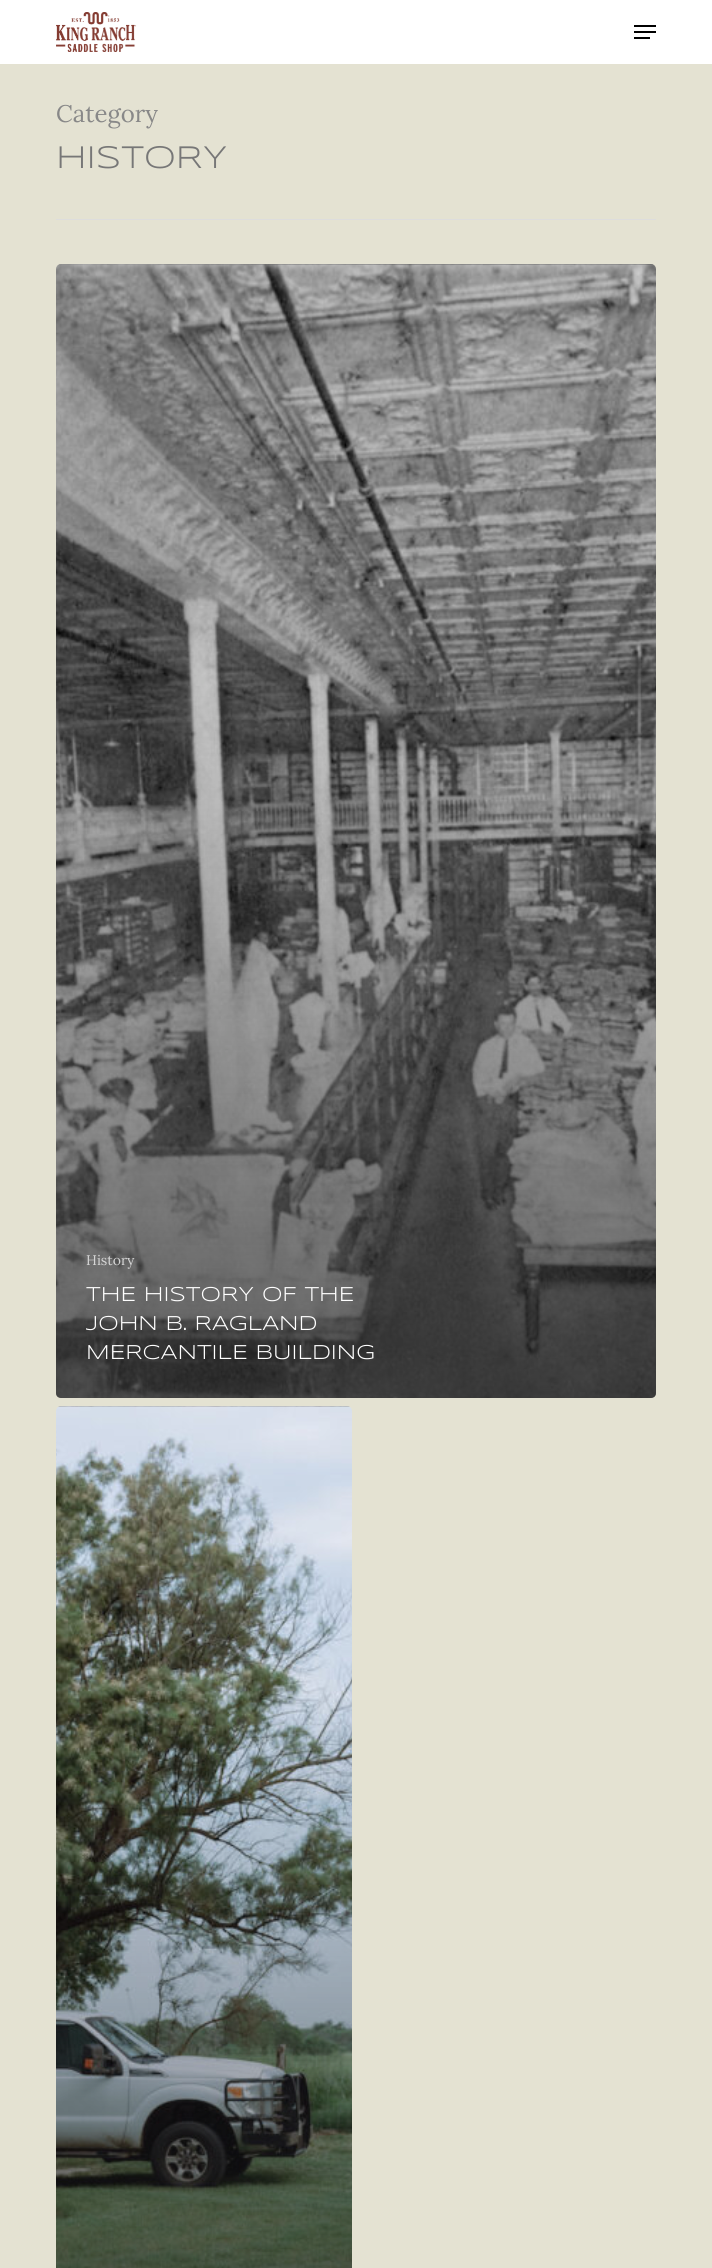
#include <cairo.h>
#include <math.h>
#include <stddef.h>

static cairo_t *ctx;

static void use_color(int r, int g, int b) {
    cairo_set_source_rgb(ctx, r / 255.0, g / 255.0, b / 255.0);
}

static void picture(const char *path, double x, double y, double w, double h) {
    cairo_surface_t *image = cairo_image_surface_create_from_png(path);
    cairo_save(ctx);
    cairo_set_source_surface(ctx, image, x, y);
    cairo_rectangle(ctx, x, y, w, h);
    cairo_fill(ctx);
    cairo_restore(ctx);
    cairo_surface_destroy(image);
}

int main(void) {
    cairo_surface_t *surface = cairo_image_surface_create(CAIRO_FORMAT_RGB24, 712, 2268);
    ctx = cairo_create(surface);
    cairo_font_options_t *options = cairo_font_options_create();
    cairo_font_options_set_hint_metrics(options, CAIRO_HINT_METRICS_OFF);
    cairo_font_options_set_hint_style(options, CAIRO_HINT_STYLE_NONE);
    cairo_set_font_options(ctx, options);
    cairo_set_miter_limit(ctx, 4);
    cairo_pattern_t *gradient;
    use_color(228, 226, 210);
    cairo_paint(ctx);
    use_color(255, 255, 255);
    cairo_rectangle(ctx, 0, 0, 712, 64);
    cairo_fill(ctx);
    picture("img1.png", 56, 12, 81, 40);
    use_color(0, 0, 0);
    cairo_rectangle(ctx, 634, 25, 22, 2);
    cairo_fill(ctx);
    cairo_rectangle(ctx, 634, 37, 16, 2);
    cairo_fill(ctx);
    cairo_rectangle(ctx, 634, 31, 22, 2);
    cairo_fill(ctx);
    use_color(221, 221, 221);
    cairo_rectangle(ctx, 56, 219, 600, 1);
    cairo_fill(ctx);
    cairo_select_font_face(ctx, "Lora", CAIRO_FONT_SLANT_NORMAL, CAIRO_FONT_WEIGHT_NORMAL);
    cairo_set_font_size(ctx, 24);
    use_color(136, 136, 136);
    cairo_move_to(ctx, 56, 122);
    cairo_show_text(ctx, "Category");
    cairo_select_font_face(ctx, "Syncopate", CAIRO_FONT_SLANT_NORMAL, CAIRO_FONT_WEIGHT_NORMAL);
    cairo_set_font_size(ctx, 32.25);
    use_color(119, 119, 119);
    cairo_move_to(ctx, 56, 168);
    cairo_show_text(ctx, "HISTORY");
    picture("img2.png", 56, 264, 600, 1134);
    gradient = cairo_pattern_create_linear(357, 549, 358, 1403);
    cairo_pattern_add_color_stop_rgba(gradient, 0, 0.137, 0.137, 0.137, 0);
    cairo_pattern_add_color_stop_rgba(gradient, 1, 0.137, 0.137, 0.137, 0.65);
    cairo_set_source(ctx, gradient);
    cairo_pattern_destroy(gradient);
    cairo_new_path(ctx);
    cairo_move_to(ctx, 56, 549);
    cairo_line_to(ctx, 656, 549);
    cairo_line_to(ctx, 656, 1393);
    cairo_curve_to(ctx, 656, 1396, 654, 1398, 651, 1398);
    cairo_line_to(ctx, 61, 1398);
    cairo_curve_to(ctx, 58, 1398, 56, 1396, 56, 1393);
    cairo_close_path(ctx);
    cairo_fill(ctx);
    cairo_select_font_face(ctx, "Lora", CAIRO_FONT_SLANT_NORMAL, CAIRO_FONT_WEIGHT_NORMAL);
    cairo_set_font_size(ctx, 14);
    use_color(213, 213, 213);
    cairo_move_to(ctx, 86, 1265);
    cairo_show_text(ctx, "History");
    cairo_select_font_face(ctx, "Syncopate", CAIRO_FONT_SLANT_NORMAL, CAIRO_FONT_WEIGHT_NORMAL);
    cairo_set_font_size(ctx, 20.75);
    use_color(255, 255, 255);
    cairo_move_to(ctx, 86, 1301);
    cairo_show_text(ctx, "THE HISTORY OF THE");
    cairo_move_to(ctx, 86, 1330);
    cairo_show_text(ctx, "JOHN B. RAGLAND");
    cairo_move_to(ctx, 86, 1359);
    cairo_show_text(ctx, "MERCANTILE BUILDING");
    picture("img3.png", 56, 1406, 296, 862);
    cairo_surface_write_to_png(surface, "result.png");
    cairo_font_options_destroy(options);
    cairo_destroy(ctx);
    cairo_surface_destroy(surface);
    return 0;
}
